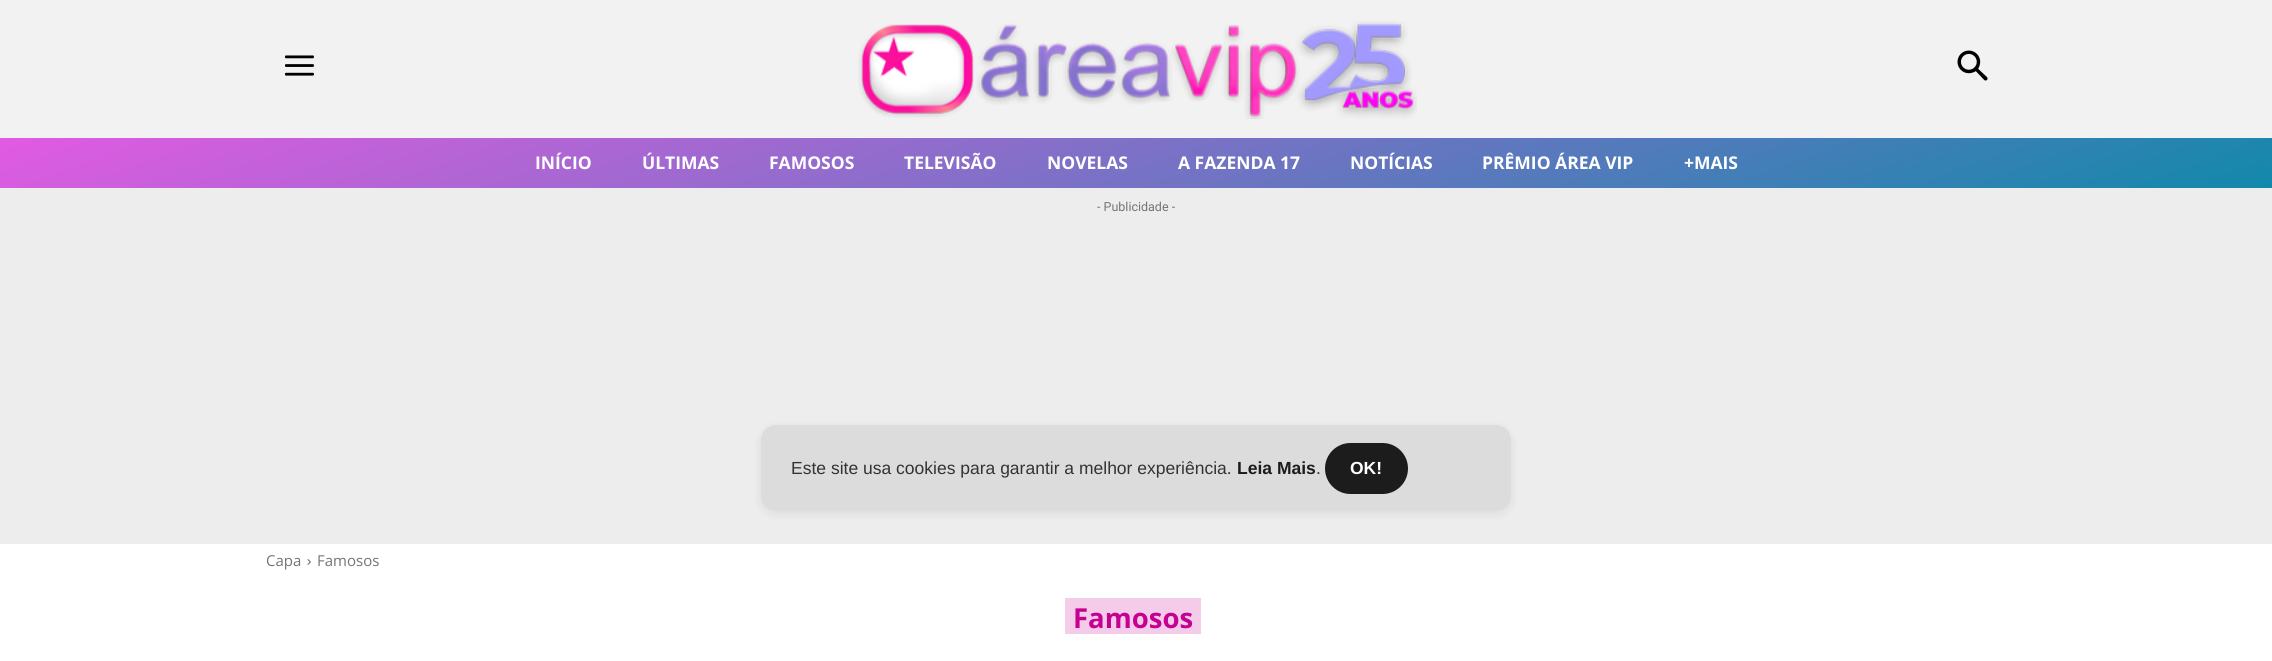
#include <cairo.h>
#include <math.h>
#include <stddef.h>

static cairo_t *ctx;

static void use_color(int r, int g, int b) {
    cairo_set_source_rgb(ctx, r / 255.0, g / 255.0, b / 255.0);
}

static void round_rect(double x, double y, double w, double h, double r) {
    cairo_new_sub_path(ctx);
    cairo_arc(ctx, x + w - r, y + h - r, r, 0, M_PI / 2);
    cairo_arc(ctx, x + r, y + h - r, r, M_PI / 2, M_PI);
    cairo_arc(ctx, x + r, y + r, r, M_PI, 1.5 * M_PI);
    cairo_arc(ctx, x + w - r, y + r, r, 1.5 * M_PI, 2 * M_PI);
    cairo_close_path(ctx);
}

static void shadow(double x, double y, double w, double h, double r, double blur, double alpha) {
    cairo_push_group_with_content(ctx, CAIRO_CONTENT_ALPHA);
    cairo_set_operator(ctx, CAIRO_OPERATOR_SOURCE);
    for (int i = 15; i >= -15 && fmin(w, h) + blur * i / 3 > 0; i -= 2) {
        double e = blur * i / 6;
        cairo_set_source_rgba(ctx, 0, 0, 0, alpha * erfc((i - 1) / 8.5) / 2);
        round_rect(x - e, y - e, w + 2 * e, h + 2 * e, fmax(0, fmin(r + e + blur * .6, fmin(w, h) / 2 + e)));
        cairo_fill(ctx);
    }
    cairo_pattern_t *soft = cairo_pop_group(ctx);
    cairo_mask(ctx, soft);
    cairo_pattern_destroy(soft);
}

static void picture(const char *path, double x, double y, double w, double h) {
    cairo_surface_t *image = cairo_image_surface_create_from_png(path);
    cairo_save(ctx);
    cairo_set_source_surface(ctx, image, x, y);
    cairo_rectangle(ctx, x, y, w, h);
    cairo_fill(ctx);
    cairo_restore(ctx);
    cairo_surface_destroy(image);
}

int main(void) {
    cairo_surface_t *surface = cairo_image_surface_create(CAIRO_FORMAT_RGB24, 2272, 661);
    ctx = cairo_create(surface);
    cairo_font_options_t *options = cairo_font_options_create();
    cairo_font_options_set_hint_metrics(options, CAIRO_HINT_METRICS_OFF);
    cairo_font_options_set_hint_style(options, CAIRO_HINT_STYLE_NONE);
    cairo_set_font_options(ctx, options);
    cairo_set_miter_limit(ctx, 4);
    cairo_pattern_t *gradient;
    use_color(255, 255, 255);
    cairo_paint(ctx);
    use_color(242, 242, 242);
    cairo_rectangle(ctx, 0, 0, 2272, 138);
    cairo_fill(ctx);
    picture("img1.png", 285, 55, 29, 21);
    picture("img2.png", 858, 21, 559, 98);
    picture("img3.png", 1957, 50, 31, 31);
    gradient = cairo_pattern_create_linear(1277, 550, 995, -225);
    cairo_pattern_add_color_stop_rgba(gradient, 0, 0.071, 0.537, 0.667, 1);
    cairo_pattern_add_color_stop_rgba(gradient, 1, 0.886, 0.353, 0.886, 1);
    cairo_set_source(ctx, gradient);
    cairo_pattern_destroy(gradient);
    cairo_rectangle(ctx, 0, 138, 2272, 50);
    cairo_fill(ctx);
    cairo_select_font_face(ctx, "Open Sans", CAIRO_FONT_SLANT_NORMAL, CAIRO_FONT_WEIGHT_BOLD);
    cairo_set_font_size(ctx, 17.5);
    use_color(255, 255, 255);
    cairo_move_to(ctx, 535, 169);
    cairo_show_text(ctx, "INÍCIO");
    cairo_move_to(ctx, 642, 169);
    cairo_show_text(ctx, "ÚLTIMAS");
    cairo_move_to(ctx, 769, 169);
    cairo_show_text(ctx, "FAMOSOS");
    cairo_move_to(ctx, 904, 169);
    cairo_show_text(ctx, "TELEVISÃO");
    cairo_move_to(ctx, 1047, 169);
    cairo_show_text(ctx, "NOVELAS");
    cairo_move_to(ctx, 1178, 169);
    cairo_show_text(ctx, "A FAZENDA 17");
    cairo_move_to(ctx, 1350, 169);
    cairo_show_text(ctx, "NOTÍCIAS");
    cairo_move_to(ctx, 1482, 169);
    cairo_show_text(ctx, "PRÊMIO ÁREA VIP");
    cairo_move_to(ctx, 1684, 169);
    cairo_show_text(ctx, "+MAIS");
    use_color(237, 237, 237);
    cairo_rectangle(ctx, 0, 188, 2272, 356);
    cairo_fill(ctx);
    cairo_select_font_face(ctx, "Roboto", CAIRO_FONT_SLANT_NORMAL, CAIRO_FONT_WEIGHT_NORMAL);
    cairo_set_font_size(ctx, 12.5);
    use_color(116, 116, 116);
    cairo_move_to(ctx, 1097, 211);
    cairo_show_text(ctx, "- Publicidade -");
    cairo_select_font_face(ctx, "Open Sans", CAIRO_FONT_SLANT_NORMAL, CAIRO_FONT_WEIGHT_NORMAL);
    cairo_set_font_size(ctx, 15);
    cairo_move_to(ctx, 266, 566);
    cairo_show_text(ctx, "Capa");
    picture("img4.png", 307, 559, 4, 6);
    cairo_move_to(ctx, 317, 566);
    cairo_show_text(ctx, "Famosos");
    use_color(244, 204, 233);
    cairo_rectangle(ctx, 1065, 598, 136, 36);
    cairo_fill(ctx);
    cairo_select_font_face(ctx, "Open Sans", CAIRO_FONT_SLANT_NORMAL, CAIRO_FONT_WEIGHT_BOLD);
    cairo_set_font_size(ctx, 27.5);
    use_color(198, 0, 145);
    cairo_move_to(ctx, 1073, 628);
    cairo_show_text(ctx, "Famosos");
    use_color(0, 0, 0);
    shadow(761, 428, 750, 86, 15, 5, 0.08);
    use_color(220, 220, 220);
    round_rect(761, 425, 750, 86, 15);
    cairo_fill(ctx);
    cairo_select_font_face(ctx, "Liberation Sans", CAIRO_FONT_SLANT_NORMAL, CAIRO_FONT_WEIGHT_NORMAL);
    cairo_set_font_size(ctx, 17.5);
    use_color(51, 51, 51);
    cairo_move_to(ctx, 791, 474);
    cairo_show_text(ctx, "Este site usa cookies para garantir a melhor experiência.");
    cairo_select_font_face(ctx, "Liberation Sans", CAIRO_FONT_SLANT_NORMAL, CAIRO_FONT_WEIGHT_BOLD);
    use_color(28, 28, 28);
    cairo_move_to(ctx, 1237, 474);
    cairo_show_text(ctx, "Leia Mais");
    cairo_select_font_face(ctx, "Liberation Sans", CAIRO_FONT_SLANT_NORMAL, CAIRO_FONT_WEIGHT_NORMAL);
    use_color(51, 51, 51);
    cairo_move_to(ctx, 1316, 474);
    cairo_show_text(ctx, ".");
    use_color(28, 28, 28);
    round_rect(1325, 443, 83, 51, 25.5);
    cairo_fill(ctx);
    cairo_select_font_face(ctx, "Liberation Sans", CAIRO_FONT_SLANT_NORMAL, CAIRO_FONT_WEIGHT_BOLD);
    use_color(255, 255, 255);
    cairo_move_to(ctx, 1350, 474);
    cairo_show_text(ctx, "OK!");
    cairo_surface_write_to_png(surface, "result.png");
    cairo_font_options_destroy(options);
    cairo_destroy(ctx);
    cairo_surface_destroy(surface);
    return 0;
}
